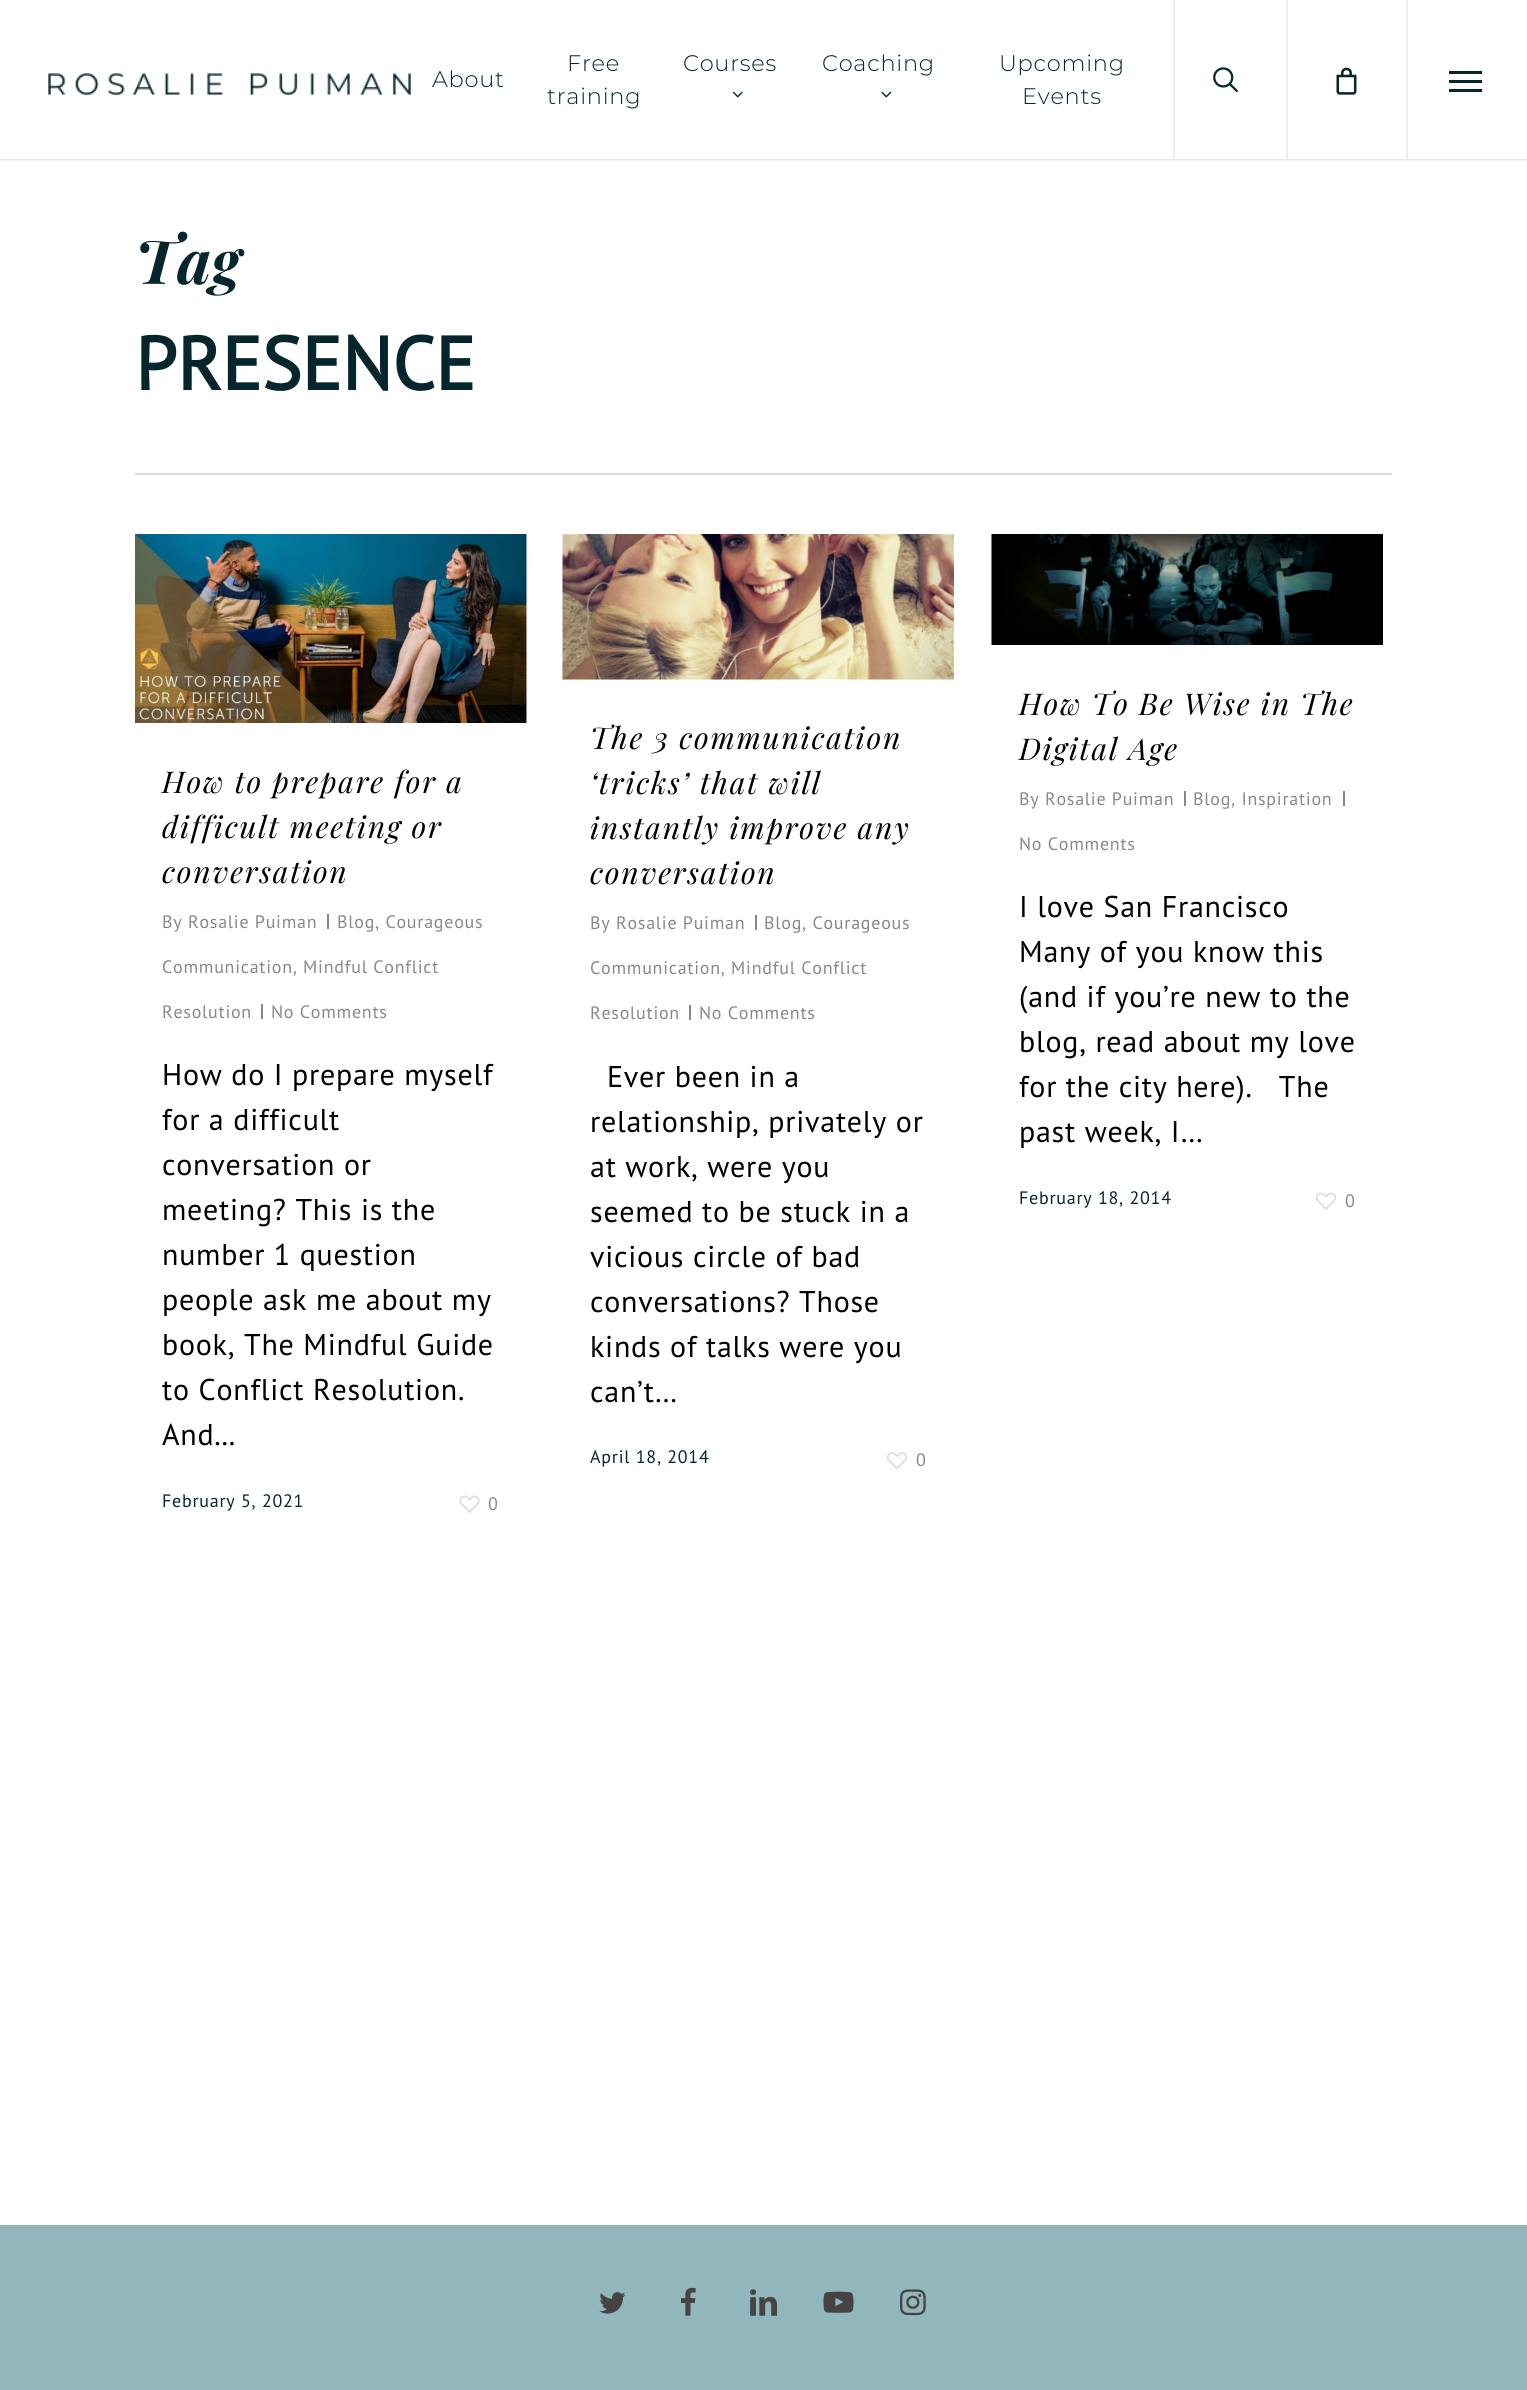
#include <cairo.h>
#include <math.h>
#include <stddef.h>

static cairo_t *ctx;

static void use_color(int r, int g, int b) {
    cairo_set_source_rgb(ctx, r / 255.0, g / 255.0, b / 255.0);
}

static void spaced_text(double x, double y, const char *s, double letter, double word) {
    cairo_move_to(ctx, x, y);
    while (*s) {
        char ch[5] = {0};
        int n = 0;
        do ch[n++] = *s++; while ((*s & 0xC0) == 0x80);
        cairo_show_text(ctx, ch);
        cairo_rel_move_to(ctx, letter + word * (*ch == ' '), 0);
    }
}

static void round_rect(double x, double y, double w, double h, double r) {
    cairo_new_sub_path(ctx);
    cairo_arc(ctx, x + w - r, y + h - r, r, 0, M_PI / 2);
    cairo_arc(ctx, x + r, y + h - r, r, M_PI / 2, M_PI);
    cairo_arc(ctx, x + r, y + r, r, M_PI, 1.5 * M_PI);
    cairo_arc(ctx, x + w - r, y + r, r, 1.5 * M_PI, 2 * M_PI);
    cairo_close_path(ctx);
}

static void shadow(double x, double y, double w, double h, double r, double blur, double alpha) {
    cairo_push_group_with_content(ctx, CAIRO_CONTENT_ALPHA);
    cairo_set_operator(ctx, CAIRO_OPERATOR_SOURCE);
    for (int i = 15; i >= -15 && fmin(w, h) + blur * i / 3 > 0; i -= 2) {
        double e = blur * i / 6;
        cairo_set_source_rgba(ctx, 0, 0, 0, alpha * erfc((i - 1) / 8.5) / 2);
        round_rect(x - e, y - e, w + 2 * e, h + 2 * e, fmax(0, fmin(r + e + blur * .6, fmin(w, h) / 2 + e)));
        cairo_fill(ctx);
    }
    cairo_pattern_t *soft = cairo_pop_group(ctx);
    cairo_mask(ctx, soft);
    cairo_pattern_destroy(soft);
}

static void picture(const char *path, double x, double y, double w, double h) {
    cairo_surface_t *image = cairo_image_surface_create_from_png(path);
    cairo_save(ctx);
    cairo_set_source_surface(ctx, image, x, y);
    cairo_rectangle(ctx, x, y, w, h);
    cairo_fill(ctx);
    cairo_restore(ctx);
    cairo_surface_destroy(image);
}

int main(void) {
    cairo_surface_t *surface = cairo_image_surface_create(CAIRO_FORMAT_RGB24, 1527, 2390);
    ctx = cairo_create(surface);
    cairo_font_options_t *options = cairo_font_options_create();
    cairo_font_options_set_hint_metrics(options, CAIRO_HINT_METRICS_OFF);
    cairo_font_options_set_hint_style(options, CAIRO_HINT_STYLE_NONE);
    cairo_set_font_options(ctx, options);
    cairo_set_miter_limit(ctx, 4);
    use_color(255, 255, 255);
    cairo_paint(ctx);
    cairo_save(ctx);
    cairo_rectangle(ctx, 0, 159, 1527, 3);
    cairo_clip(ctx);
    use_color(0, 0, 0);
    shadow(0, 0, 1527, 159, 0, 2, 0.22);
    cairo_restore(ctx);
    picture("img1.png", 48, 73, 363, 23);
    cairo_select_font_face(ctx, "Montserrat Thin", CAIRO_FONT_SLANT_NORMAL, CAIRO_FONT_WEIGHT_NORMAL);
    cairo_set_font_size(ctx, 22.5);
    use_color(6, 38, 45);
    spaced_text(567, 71, "Free", 0.75, 0);
    spaced_text(547, 104, "training", 0.75, 0);
    spaced_text(683, 71, "Courses", 0.75, 0);
    picture("img2.png", 732, 91, 11, 7);
    spaced_text(822, 71, "Coaching", 0.75, 0);
    picture("img3.png", 881, 91, 11, 7);
    spaced_text(999, 71, "Upcoming", 0.75, 0);
    spaced_text(1022, 104, "Events", 0.75, 0);
    spaced_text(432, 87, "About", 0.75, 0);
    use_color(237, 237, 237);
    cairo_rectangle(ctx, 1173, 0, 2, 159);
    cairo_fill(ctx);
    picture("img4.png", 1213, 67, 25, 25);
    cairo_rectangle(ctx, 1286, 0, 2, 159);
    cairo_fill(ctx);
    picture("img5.png", 1336, 67, 21, 28);
    cairo_rectangle(ctx, 1406, 0, 2, 159);
    cairo_fill(ctx);
    use_color(6, 38, 45);
    cairo_rectangle(ctx, 1449, 71, 33, 3);
    cairo_fill(ctx);
    cairo_rectangle(ctx, 1449, 89, 33, 3);
    cairo_fill(ctx);
    cairo_rectangle(ctx, 1449, 80, 33, 3);
    cairo_fill(ctx);
    use_color(217, 217, 217);
    cairo_rectangle(ctx, 135, 473, 1257, 2);
    cairo_fill(ctx);
    cairo_select_font_face(ctx, "Playfair Display", CAIRO_FONT_SLANT_ITALIC, CAIRO_FONT_WEIGHT_BOLD);
    cairo_set_font_size(ctx, 61);
    use_color(6, 38, 45);
    spaced_text(135, 284, "Tag", 0.75, 0);
    cairo_select_font_face(ctx, "PT Sans", CAIRO_FONT_SLANT_NORMAL, CAIRO_FONT_WEIGHT_BOLD);
    cairo_set_font_size(ctx, 75);
    cairo_move_to(ctx, 135, 390);
    cairo_show_text(ctx, "PRESENCE");
    picture("img6.png", 135, 534, 392, 189);
    cairo_select_font_face(ctx, "Playfair Display", CAIRO_FONT_SLANT_ITALIC, CAIRO_FONT_WEIGHT_NORMAL);
    cairo_set_font_size(ctx, 30);
    use_color(0, 0, 0);
    spaced_text(162, 793, "How to prepare for a", 1.8, 0);
    spaced_text(162, 838, "difficult meeting or", 1.8, 0);
    spaced_text(162, 883, "conversation", 1.8, 0);
    cairo_select_font_face(ctx, "PT Sans", CAIRO_FONT_SLANT_NORMAL, CAIRO_FONT_WEIGHT_NORMAL);
    cairo_set_font_size(ctx, 18);
    use_color(136, 136, 136);
    spaced_text(162, 928, "By Rosalie Puiman", 0.75, 0);
    cairo_rectangle(ctx, 327, 914, 2, 15);
    cairo_fill(ctx);
    spaced_text(337, 928, "Blog, Courageous", 0.75, 0);
    spaced_text(162, 973, "Communication, Mindful Conflict", 0.75, 0);
    spaced_text(162, 1018, "Resolution", 0.75, 0);
    cairo_rectangle(ctx, 261, 1004, 2, 15);
    cairo_fill(ctx);
    spaced_text(271, 1018, "No Comments", 0.75, 0);
    cairo_set_font_size(ctx, 30);
    use_color(0, 0, 0);
    spaced_text(162, 1085, "How do I prepare myself", 0.75, 0);
    spaced_text(162, 1130, "for a difficult", 0.75, 0);
    spaced_text(162, 1175, "conversation or", 0.75, 0);
    spaced_text(162, 1220, "meeting? This is the", 0.75, 0);
    spaced_text(162, 1265, "number 1 question", 0.75, 0);
    spaced_text(162, 1310, "people ask me about my", 0.75, 0);
    spaced_text(162, 1355, "book, The Mindful Guide", 0.75, 0);
    spaced_text(162, 1400, "to Conflict Resolution.", 0.75, 0);
    spaced_text(162, 1445, "And...", 0.75, 0);
    cairo_set_font_size(ctx, 18);
    use_color(6, 38, 45);
    spaced_text(162, 1507, "February 5, 2021", 0.75, 0);
    picture("img7.png", 459, 1495, 21, 18);
    use_color(136, 136, 136);
    spaced_text(488, 1510, "0", 0.75, 0);
    picture("img8.png", 562, 534, 392, 146);
    cairo_select_font_face(ctx, "Playfair Display", CAIRO_FONT_SLANT_ITALIC, CAIRO_FONT_WEIGHT_NORMAL);
    cairo_set_font_size(ctx, 30);
    use_color(0, 0, 0);
    spaced_text(590, 749, "The 3 communication", 1.8, 0);
    spaced_text(590, 794, "‘tricks’ that will", 1.8, 0);
    spaced_text(590, 839, "instantly improve any", 1.8, 0);
    spaced_text(590, 884, "conversation", 1.8, 0);
    cairo_select_font_face(ctx, "PT Sans", CAIRO_FONT_SLANT_NORMAL, CAIRO_FONT_WEIGHT_NORMAL);
    cairo_set_font_size(ctx, 18);
    use_color(136, 136, 136);
    spaced_text(764, 929, "Blog, Courageous", 0.75, 0);
    spaced_text(590, 974, "Communication, Mindful Conflict", 0.75, 0);
    spaced_text(590, 1019, "Resolution", 0.75, 0);
    cairo_rectangle(ctx, 689, 1005, 2, 15);
    cairo_fill(ctx);
    spaced_text(590, 929, "By Rosalie Puiman", 0.75, 0);
    cairo_rectangle(ctx, 755, 915, 2, 15);
    cairo_fill(ctx);
    spaced_text(699, 1019, "No Comments", 0.75, 0);
    cairo_set_font_size(ctx, 30);
    use_color(0, 0, 0);
    spaced_text(607, 1087, "Ever been in a", 0.75, 0);
    spaced_text(590, 1132, "relationship, privately or", 0.75, 0);
    spaced_text(590, 1177, "at work, were you", 0.75, 0);
    spaced_text(590, 1222, "seemed to be stuck in a", 0.75, 0);
    spaced_text(590, 1267, "vicious circle of bad", 0.75, 0);
    spaced_text(590, 1312, "conversations? Those", 0.75, 0);
    spaced_text(590, 1357, "kinds of talks were you", 0.75, 0);
    spaced_text(590, 1402, "can’t…", 0.75, 0);
    cairo_set_font_size(ctx, 18);
    use_color(6, 38, 45);
    spaced_text(590, 1463, "April 18, 2014", 0.75, 0);
    picture("img9.png", 886, 1452, 22, 18);
    use_color(136, 136, 136);
    spaced_text(916, 1466, "0", 0.75, 0);
    picture("img10.png", 991, 534, 392, 111);
    cairo_select_font_face(ctx, "Playfair Display", CAIRO_FONT_SLANT_ITALIC, CAIRO_FONT_WEIGHT_NORMAL);
    cairo_set_font_size(ctx, 30);
    use_color(0, 0, 0);
    spaced_text(1019, 715, "How To Be Wise in The", 1.8, 0);
    spaced_text(1019, 760, "Digital Age", 1.8, 0);
    cairo_select_font_face(ctx, "PT Sans", CAIRO_FONT_SLANT_NORMAL, CAIRO_FONT_WEIGHT_NORMAL);
    cairo_set_font_size(ctx, 18);
    use_color(136, 136, 136);
    spaced_text(1019, 805, "By Rosalie Puiman", 0.75, 0);
    cairo_rectangle(ctx, 1184, 791, 2, 15);
    cairo_fill(ctx);
    spaced_text(1193, 805, "Blog, Inspiration", 0.75, 0);
    cairo_rectangle(ctx, 1343, 791, 2, 15);
    cairo_fill(ctx);
    spaced_text(1019, 850, "No Comments", 0.75, 0);
    cairo_set_font_size(ctx, 30);
    use_color(0, 0, 0);
    spaced_text(1019, 917, "I love San Francisco", 0.75, 0);
    spaced_text(1019, 962, "Many of you know this", 0.75, 0);
    spaced_text(1019, 1007, "(and if you’re new to the", 0.75, 0);
    spaced_text(1019, 1052, "blog, read about my love", 0.75, 0);
    spaced_text(1019, 1097, "for the city here).   The", 0.75, 0);
    spaced_text(1019, 1142, "past week, I…", 0.75, 0);
    cairo_set_font_size(ctx, 18);
    use_color(6, 38, 45);
    spaced_text(1019, 1204, "February 18, 2014", 0.75, 0);
    picture("img11.png", 1315, 1192, 22, 18);
    use_color(136, 136, 136);
    spaced_text(1345, 1207, "0", 0.75, 0);
    use_color(145, 182, 187);
    cairo_rectangle(ctx, 0, 2225, 1527, 165);
    cairo_fill(ctx);
    picture("img12.png", 599, 2292, 27, 22);
    picture("img13.png", 681, 2287, 15, 29);
    picture("img14.png", 750, 2289, 27, 27);
    picture("img15.png", 823, 2291, 31, 22);
    picture("img16.png", 900, 2289, 26, 27);
    cairo_surface_write_to_png(surface, "result.png");
    cairo_font_options_destroy(options);
    cairo_destroy(ctx);
    cairo_surface_destroy(surface);
    return 0;
}
